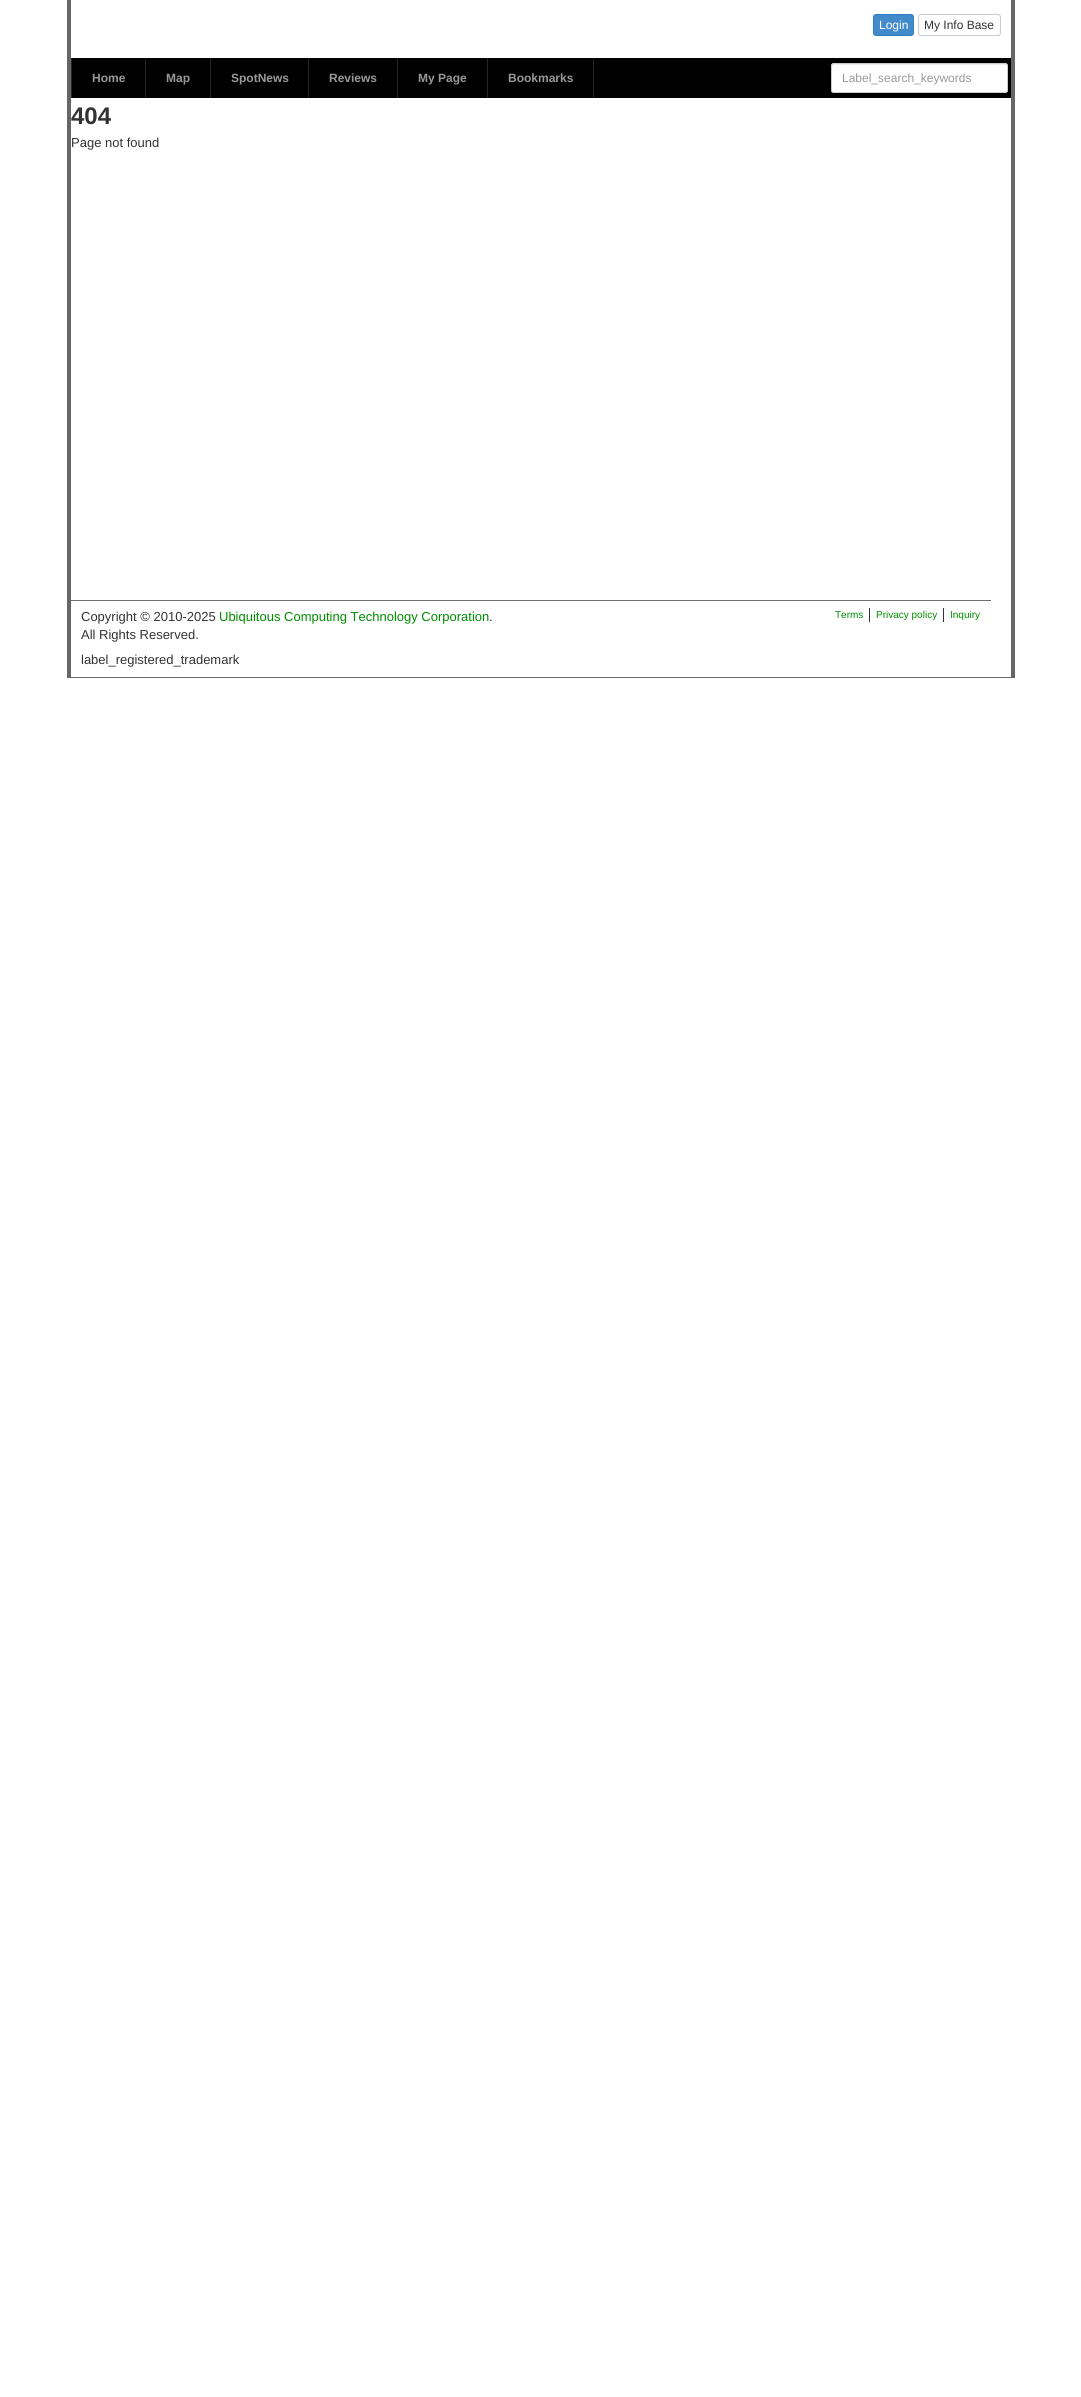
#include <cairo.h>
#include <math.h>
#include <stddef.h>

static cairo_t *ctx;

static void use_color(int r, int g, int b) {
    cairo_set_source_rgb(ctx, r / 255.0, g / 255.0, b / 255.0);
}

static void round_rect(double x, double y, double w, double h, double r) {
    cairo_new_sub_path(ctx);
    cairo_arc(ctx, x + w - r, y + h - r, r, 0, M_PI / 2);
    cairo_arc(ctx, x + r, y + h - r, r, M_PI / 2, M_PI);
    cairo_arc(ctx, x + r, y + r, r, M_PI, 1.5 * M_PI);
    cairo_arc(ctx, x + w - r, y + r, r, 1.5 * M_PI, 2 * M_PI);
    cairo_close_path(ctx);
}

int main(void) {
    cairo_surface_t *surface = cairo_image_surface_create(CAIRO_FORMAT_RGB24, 1081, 2397);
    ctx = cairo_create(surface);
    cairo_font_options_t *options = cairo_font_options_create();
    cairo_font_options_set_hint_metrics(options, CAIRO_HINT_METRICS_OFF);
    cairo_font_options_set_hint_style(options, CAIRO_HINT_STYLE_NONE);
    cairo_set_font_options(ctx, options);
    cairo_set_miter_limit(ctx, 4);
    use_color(255, 255, 255);
    cairo_paint(ctx);
    use_color(102, 102, 102);
    cairo_rectangle(ctx, 1011, 0, 4, 678);
    cairo_fill(ctx);
    cairo_rectangle(ctx, 67, 677, 948, 1);
    cairo_fill(ctx);
    cairo_rectangle(ctx, 67, 0, 4, 678);
    cairo_fill(ctx);
    use_color(66, 139, 202);
    round_rect(873.5, 14.5, 40, 21, 2.5);
    cairo_fill_preserve(ctx);
    use_color(53, 126, 189);
    cairo_set_line_width(ctx, 1);
    cairo_stroke(ctx);
    cairo_select_font_face(ctx, "Liberation Sans", CAIRO_FONT_SLANT_NORMAL, CAIRO_FONT_WEIGHT_NORMAL);
    cairo_set_font_size(ctx, 12);
    use_color(255, 255, 255);
    cairo_move_to(ctx, 879, 29);
    cairo_show_text(ctx, "Login");
    round_rect(918.5, 14.5, 82, 21, 2.5);
    use_color(204, 204, 204);
    cairo_stroke(ctx);
    use_color(51, 51, 51);
    cairo_move_to(ctx, 924, 29);
    cairo_show_text(ctx, "My Info Base");
    use_color(0, 0, 0);
    cairo_rectangle(ctx, 72, 58, 939, 40);
    cairo_fill(ctx);
    use_color(37, 37, 37);
    cairo_rectangle(ctx, 145, 58, 1, 40);
    cairo_fill(ctx);
    cairo_rectangle(ctx, 71, 58, 1, 40);
    cairo_fill(ctx);
    cairo_select_font_face(ctx, "Liberation Sans", CAIRO_FONT_SLANT_NORMAL, CAIRO_FONT_WEIGHT_BOLD);
    use_color(153, 153, 153);
    cairo_move_to(ctx, 92, 82);
    cairo_show_text(ctx, "Home");
    use_color(37, 37, 37);
    cairo_rectangle(ctx, 210, 58, 1, 40);
    cairo_fill(ctx);
    use_color(153, 153, 153);
    cairo_move_to(ctx, 166, 82);
    cairo_show_text(ctx, "Map");
    use_color(37, 37, 37);
    cairo_rectangle(ctx, 308, 58, 1, 40);
    cairo_fill(ctx);
    use_color(153, 153, 153);
    cairo_move_to(ctx, 231, 82);
    cairo_show_text(ctx, "SpotNews");
    use_color(37, 37, 37);
    cairo_rectangle(ctx, 397, 58, 1, 40);
    cairo_fill(ctx);
    use_color(153, 153, 153);
    cairo_move_to(ctx, 329, 82);
    cairo_show_text(ctx, "Reviews");
    use_color(37, 37, 37);
    cairo_rectangle(ctx, 487, 58, 1, 40);
    cairo_fill(ctx);
    use_color(153, 153, 153);
    cairo_move_to(ctx, 418, 82);
    cairo_show_text(ctx, "My Page");
    use_color(37, 37, 37);
    cairo_rectangle(ctx, 593, 58, 1, 40);
    cairo_fill(ctx);
    use_color(153, 153, 153);
    cairo_move_to(ctx, 508, 82);
    cairo_show_text(ctx, "Bookmarks");
    use_color(255, 255, 255);
    round_rect(831, 63, 177, 30, 3);
    cairo_fill(ctx);
    use_color(236, 236, 236);
    cairo_new_path(ctx);
    cairo_move_to(ctx, 834, 65);
    cairo_line_to(ctx, 1005, 65);
    cairo_curve_to(ctx, 1006, 65, 1007, 66, 1007, 67);
    cairo_curve_to(ctx, 1007, 66, 1007, 64, 1005, 64);
    cairo_line_to(ctx, 834, 64);
    cairo_curve_to(ctx, 832, 64, 832, 66, 832, 67);
    cairo_curve_to(ctx, 832, 66, 833, 65, 834, 65);
    cairo_close_path(ctx);
    cairo_fill(ctx);
    round_rect(831.5, 63.5, 176, 29, 2.5);
    use_color(204, 204, 204);
    cairo_stroke(ctx);
    cairo_select_font_face(ctx, "Liberation Sans", CAIRO_FONT_SLANT_NORMAL, CAIRO_FONT_WEIGHT_NORMAL);
    use_color(153, 153, 153);
    cairo_move_to(ctx, 842, 82);
    cairo_show_text(ctx, "Label_search_keywords");
    cairo_save(ctx);
    cairo_rectangle(ctx, 71, 0, 940, 677);
    cairo_clip(ctx);
    cairo_select_font_face(ctx, "Liberation Sans", CAIRO_FONT_SLANT_NORMAL, CAIRO_FONT_WEIGHT_BOLD);
    cairo_set_font_size(ctx, 24);
    use_color(51, 51, 51);
    cairo_move_to(ctx, 71, 124);
    cairo_show_text(ctx, "404");
    cairo_restore(ctx);
    cairo_set_font_size(ctx, 13);
    use_color(51, 51, 51);
    cairo_move_to(ctx, 71, 147);
    cairo_show_text(ctx, "Page not found");
    use_color(113, 112, 113);
    cairo_rectangle(ctx, 71, 600, 920, 1);
    cairo_fill(ctx);
    use_color(51, 51, 51);
    cairo_move_to(ctx, 81, 621);
    cairo_show_text(ctx, "Copyright © 2010-2025");
    use_color(0, 141, 0);
    cairo_move_to(ctx, 219, 621);
    cairo_show_text(ctx, "Ubiquitous Computing Technology Corporation");
    use_color(51, 51, 51);
    cairo_move_to(ctx, 489, 621);
    cairo_show_text(ctx, ".");
    cairo_move_to(ctx, 81, 639);
    cairo_show_text(ctx, "All Rights Reserved.");
    cairo_move_to(ctx, 81, 664);
    cairo_show_text(ctx, "label_registered_trademark");
    cairo_rectangle(ctx, 869, 608, 1, 14);
    cairo_fill(ctx);
    cairo_set_font_size(ctx, 10);
    use_color(0, 141, 0);
    cairo_move_to(ctx, 835, 618);
    cairo_show_text(ctx, "Terms");
    use_color(51, 51, 51);
    cairo_rectangle(ctx, 943, 608, 1, 14);
    cairo_fill(ctx);
    use_color(0, 141, 0);
    cairo_move_to(ctx, 876, 618);
    cairo_show_text(ctx, "Privacy policy");
    cairo_move_to(ctx, 950, 618);
    cairo_show_text(ctx, "Inquiry");
    cairo_surface_write_to_png(surface, "result.png");
    cairo_font_options_destroy(options);
    cairo_destroy(ctx);
    cairo_surface_destroy(surface);
    return 0;
}
